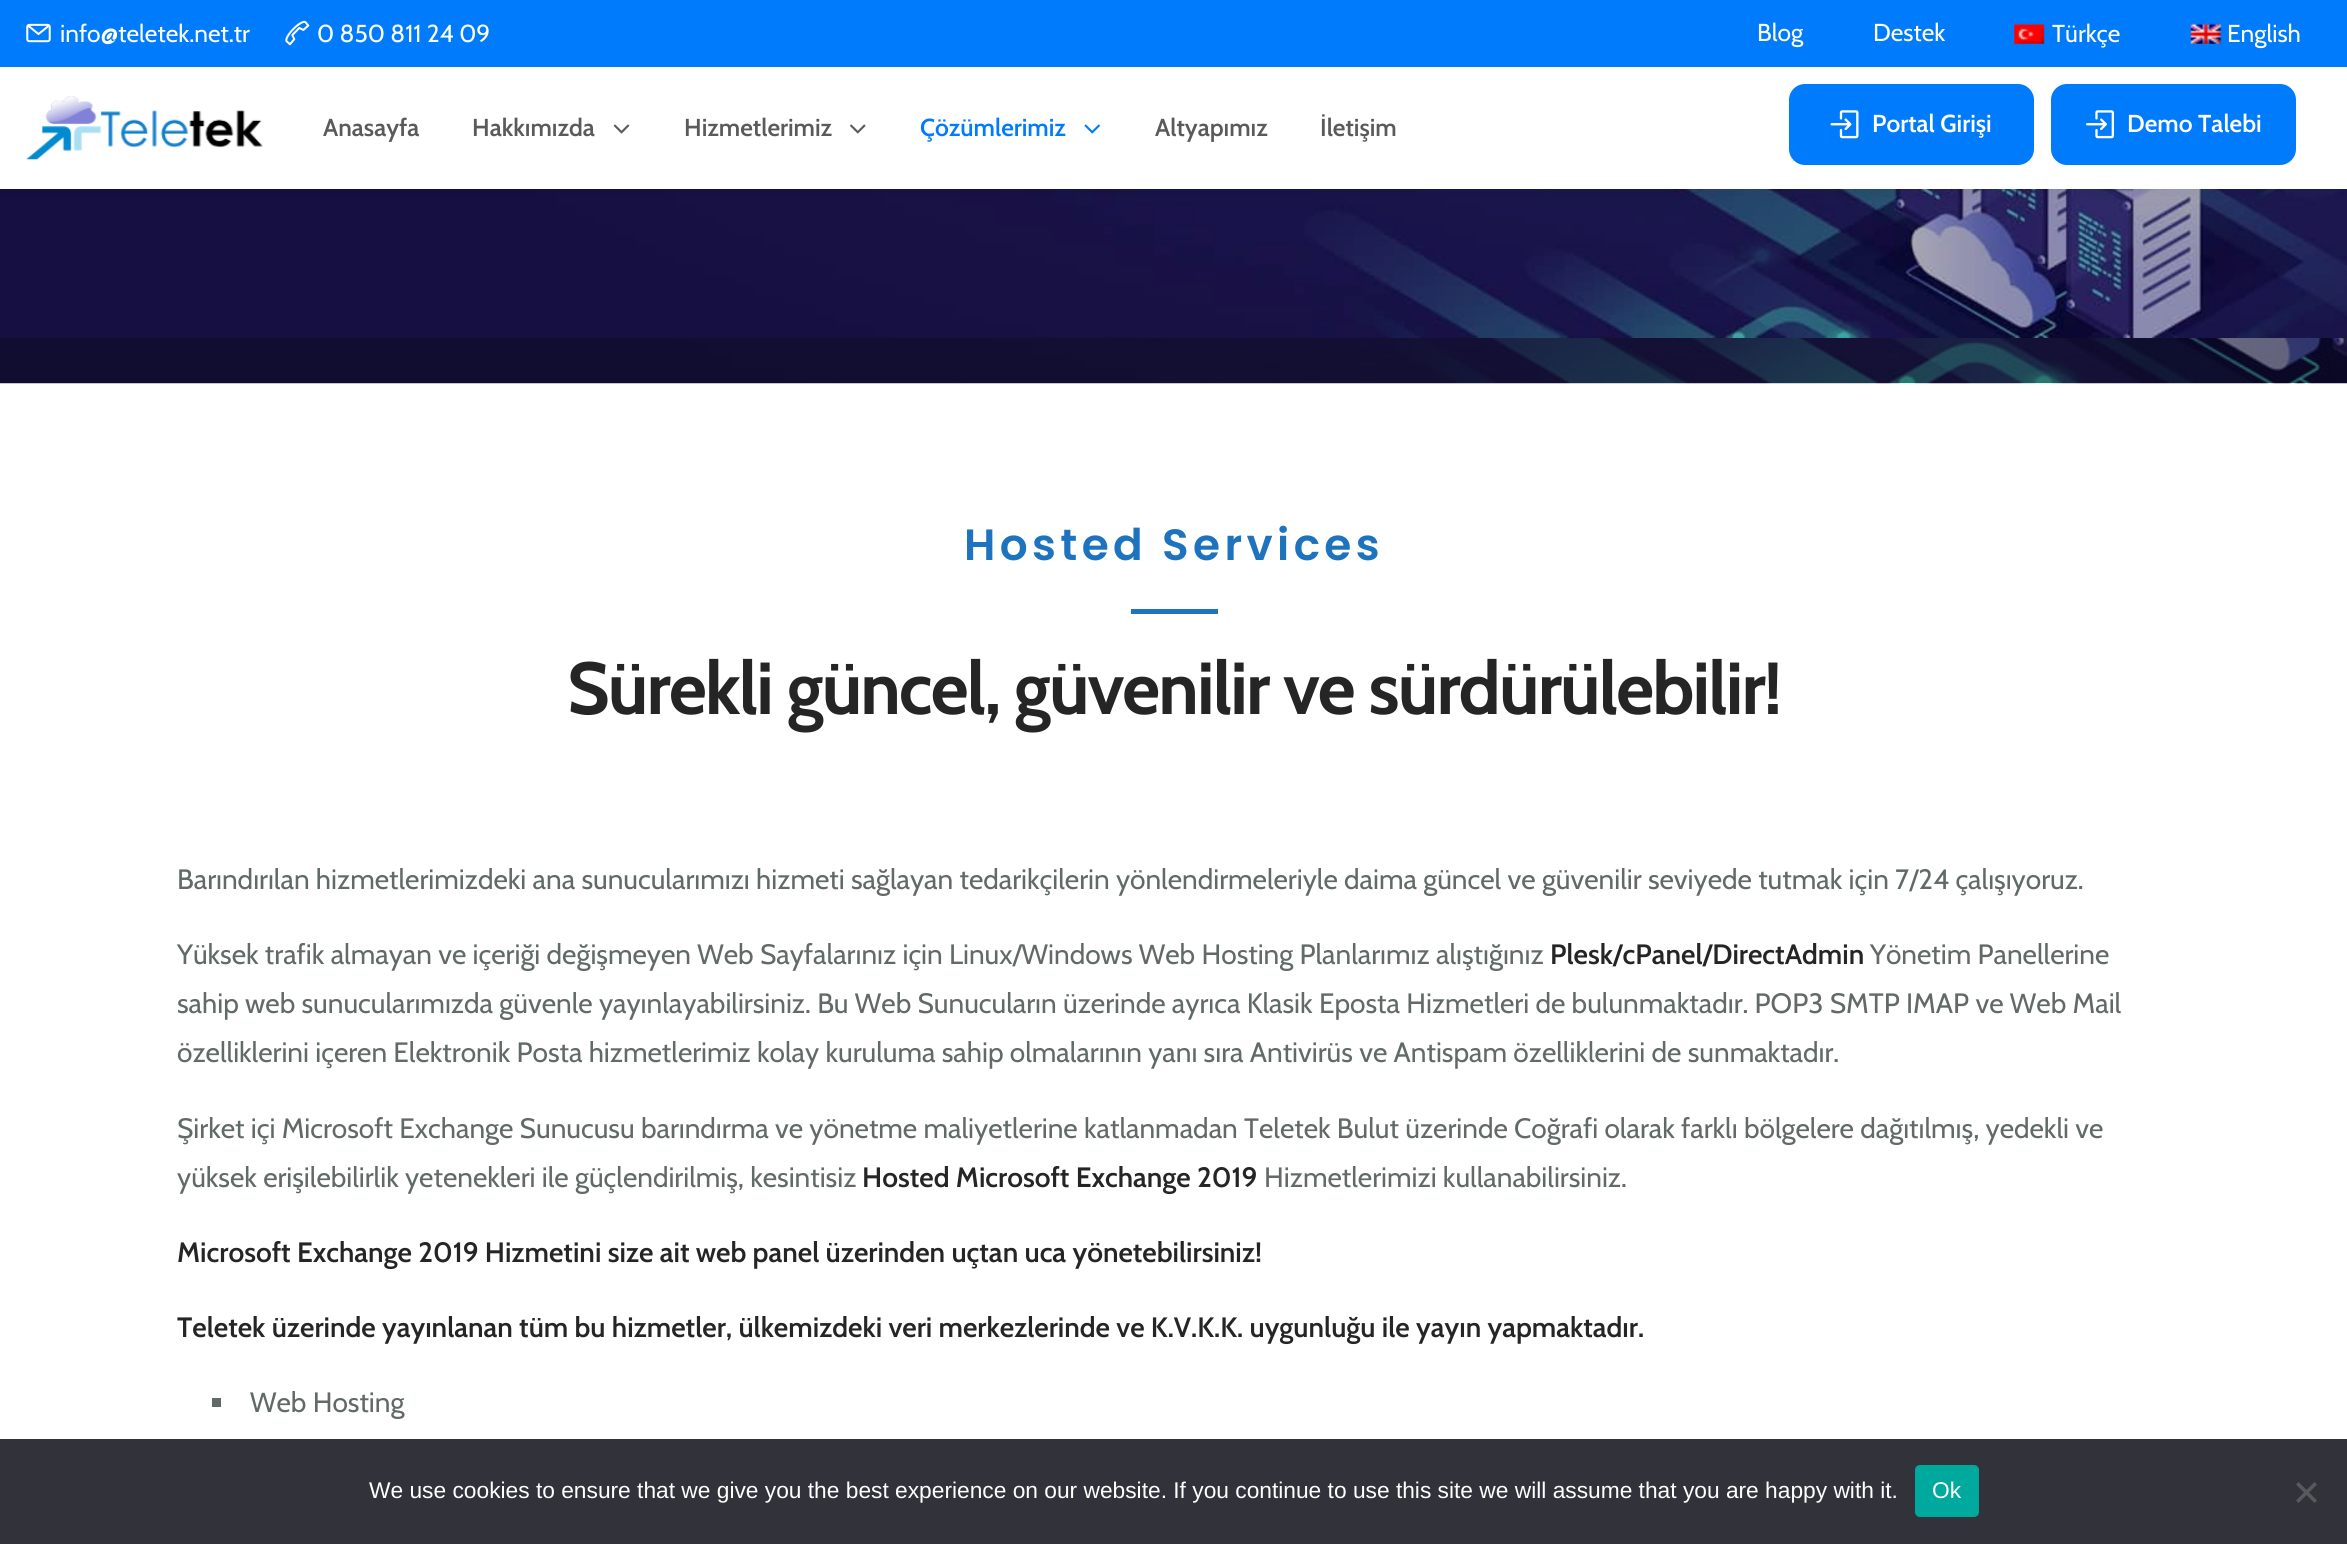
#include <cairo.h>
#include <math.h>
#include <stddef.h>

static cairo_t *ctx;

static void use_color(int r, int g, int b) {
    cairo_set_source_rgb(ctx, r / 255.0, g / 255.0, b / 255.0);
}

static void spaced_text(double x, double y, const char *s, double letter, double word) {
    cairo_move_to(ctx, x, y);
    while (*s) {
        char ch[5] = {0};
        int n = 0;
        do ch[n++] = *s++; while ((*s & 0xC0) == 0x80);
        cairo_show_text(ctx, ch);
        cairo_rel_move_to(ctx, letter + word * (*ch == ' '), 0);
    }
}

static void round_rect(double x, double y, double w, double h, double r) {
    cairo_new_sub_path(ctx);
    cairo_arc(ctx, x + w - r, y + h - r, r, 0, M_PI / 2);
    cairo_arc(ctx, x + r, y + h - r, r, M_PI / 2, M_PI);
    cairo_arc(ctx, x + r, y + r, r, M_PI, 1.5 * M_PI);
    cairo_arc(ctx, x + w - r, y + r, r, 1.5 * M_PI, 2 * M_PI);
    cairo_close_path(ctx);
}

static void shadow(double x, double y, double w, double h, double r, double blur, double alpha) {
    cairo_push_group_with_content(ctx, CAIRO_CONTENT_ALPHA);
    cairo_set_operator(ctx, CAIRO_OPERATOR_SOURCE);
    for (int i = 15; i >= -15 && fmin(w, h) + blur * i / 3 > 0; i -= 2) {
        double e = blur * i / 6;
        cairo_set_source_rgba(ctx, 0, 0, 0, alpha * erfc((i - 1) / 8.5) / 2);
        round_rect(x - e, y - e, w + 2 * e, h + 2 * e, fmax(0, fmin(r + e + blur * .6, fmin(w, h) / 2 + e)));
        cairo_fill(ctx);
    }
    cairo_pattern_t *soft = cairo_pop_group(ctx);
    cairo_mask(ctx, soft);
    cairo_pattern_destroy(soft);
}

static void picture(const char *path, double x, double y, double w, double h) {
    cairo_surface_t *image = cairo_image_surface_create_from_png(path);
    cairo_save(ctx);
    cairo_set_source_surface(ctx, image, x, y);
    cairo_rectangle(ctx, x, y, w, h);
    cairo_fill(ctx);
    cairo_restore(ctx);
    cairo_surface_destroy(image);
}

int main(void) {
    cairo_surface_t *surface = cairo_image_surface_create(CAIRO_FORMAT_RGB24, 2347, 1544);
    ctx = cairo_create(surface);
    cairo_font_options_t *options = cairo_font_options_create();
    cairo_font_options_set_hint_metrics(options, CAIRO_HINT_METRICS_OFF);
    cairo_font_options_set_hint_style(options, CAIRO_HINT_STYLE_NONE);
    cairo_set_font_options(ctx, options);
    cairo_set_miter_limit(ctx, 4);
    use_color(255, 255, 255);
    cairo_paint(ctx);
    picture("img11.png", 0, 189, 2347, 149);
    use_color(0, 0, 0);
    shadow(0, 67, 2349, 122, 0, 9, 0.1);
    use_color(0, 123, 252);
    cairo_rectangle(ctx, 0, 0, 2347, 67);
    cairo_fill(ctx);
    picture("img1.png", 26, 23, 25, 20);
    cairo_select_font_face(ctx, "Cabin", CAIRO_FONT_SLANT_NORMAL, CAIRO_FONT_WEIGHT_NORMAL);
    cairo_set_font_size(ctx, 24.5);
    use_color(255, 255, 255);
    cairo_move_to(ctx, 60, 42);
    cairo_show_text(ctx, "info@teletek.net.tr");
    picture("img2.png", 285, 20, 25, 26);
    cairo_move_to(ctx, 317, 42);
    cairo_show_text(ctx, "0 850 811 24 09");
    cairo_move_to(ctx, 1757, 41);
    cairo_show_text(ctx, "Blog");
    cairo_move_to(ctx, 1873, 41);
    cairo_show_text(ctx, "Destek");
    picture("img3.png", 2014, 23, 31, 21);
    cairo_move_to(ctx, 2052, 42);
    cairo_show_text(ctx, "Türkçe");
    picture("img4.png", 2190, 23, 32, 21);
    cairo_move_to(ctx, 2227, 42);
    cairo_show_text(ctx, "English");
    cairo_rectangle(ctx, 0, 67, 2347, 122);
    cairo_fill(ctx);
    picture("img5.png", 26, 96, 237, 64);
    cairo_select_font_face(ctx, "Cabin SemiBold", CAIRO_FONT_SLANT_NORMAL, CAIRO_FONT_WEIGHT_NORMAL);
    use_color(90, 90, 90);
    cairo_move_to(ctx, 323, 136);
    cairo_show_text(ctx, "Anasayfa");
    cairo_move_to(ctx, 472, 136);
    cairo_show_text(ctx, "Hakkımızda");
    picture("img6.png", 613, 124, 17, 10);
    cairo_move_to(ctx, 684, 136);
    cairo_show_text(ctx, "Hizmetlerimiz");
    picture("img7.png", 850, 124, 16, 10);
    use_color(0, 123, 252);
    cairo_move_to(ctx, 920, 136);
    cairo_show_text(ctx, "Çözümlerimiz");
    picture("img8.png", 1084, 124, 16, 10);
    use_color(90, 90, 90);
    cairo_move_to(ctx, 1155, 136);
    cairo_show_text(ctx, "Altyapımız");
    cairo_move_to(ctx, 1320, 136);
    cairo_show_text(ctx, "İletişim");
    use_color(0, 123, 252);
    round_rect(1789, 84, 245, 81, 16);
    cairo_fill(ctx);
    picture("img9.png", 1830, 110, 29, 29);
    use_color(255, 255, 255);
    cairo_move_to(ctx, 1872, 132);
    cairo_show_text(ctx, "Portal Girişi");
    use_color(0, 123, 252);
    round_rect(2051, 84, 245, 81, 16);
    cairo_fill(ctx);
    picture("img10.png", 2086, 110, 28, 29);
    use_color(255, 255, 255);
    cairo_move_to(ctx, 2127, 132);
    cairo_show_text(ctx, "Demo Talebi");
    picture("img12.png", 0, 338, 2347, 46);
    cairo_select_font_face(ctx, "Poppins SemiBold", CAIRO_FONT_SLANT_NORMAL, CAIRO_FONT_WEIGHT_NORMAL);
    cairo_set_font_size(ctx, 43.75);
    use_color(30, 115, 190);
    spaced_text(964, 560, "Hosted Services", 4.4, 0);
    cairo_rectangle(ctx, 1131, 609, 87, 5);
    cairo_fill(ctx);
    cairo_select_font_face(ctx, "Cabin", CAIRO_FONT_SLANT_NORMAL, CAIRO_FONT_WEIGHT_BOLD);
    cairo_set_font_size(ctx, 73.5);
    use_color(37, 37, 37);
    spaced_text(567, 714, "Sürekli güncel, güvenilir ve sürdürülebilir!", -1.85, 0);
    cairo_select_font_face(ctx, "Cabin", CAIRO_FONT_SLANT_NORMAL, CAIRO_FONT_WEIGHT_NORMAL);
    cairo_set_font_size(ctx, 28);
    use_color(97, 106, 102);
    cairo_move_to(ctx, 177, 889);
    cairo_show_text(ctx, "Barındırılan hizmetlerimizdeki ana sunucularımızı hizmeti sağlayan tedarikçilerin yönlendirmeleriyle daima güncel ve güvenilir seviyede tutmak için 7/24 çalışıyoruz.");
    cairo_move_to(ctx, 177, 964);
    cairo_show_text(ctx, "Yüksek trafik almayan ve içeriği değişmeyen Web Sayfalarınız için Linux/Windows Web Hosting Planlarımız alıştığınız");
    cairo_select_font_face(ctx, "Cabin SemiBold", CAIRO_FONT_SLANT_NORMAL, CAIRO_FONT_WEIGHT_NORMAL);
    use_color(37, 37, 37);
    cairo_move_to(ctx, 1550, 964);
    cairo_show_text(ctx, "Plesk/cPanel/DirectAdmin");
    cairo_select_font_face(ctx, "Cabin", CAIRO_FONT_SLANT_NORMAL, CAIRO_FONT_WEIGHT_NORMAL);
    use_color(97, 106, 102);
    cairo_move_to(ctx, 1870, 964);
    cairo_show_text(ctx, "Yönetim Panellerine");
    cairo_move_to(ctx, 177, 1013);
    cairo_show_text(ctx, "sahip web sunucularımızda güvenle yayınlayabilirsiniz. Bu Web Sunucuların üzerinde ayrıca Klasik Eposta Hizmetleri de bulunmaktadır. POP3 SMTP IMAP ve Web Mail");
    cairo_move_to(ctx, 177, 1062);
    cairo_show_text(ctx, "özelliklerini içeren Elektronik Posta hizmetlerimiz kolay kuruluma sahip olmalarının yanı sıra Antivirüs ve Antispam özelliklerini de sunmaktadır.");
    cairo_move_to(ctx, 177, 1138);
    cairo_show_text(ctx, "Şirket içi Microsoft Exchange Sunucusu barındırma ve yönetme maliyetlerine katlanmadan Teletek Bulut üzerinde Coğrafi olarak farklı bölgelere dağıtılmış, yedekli ve");
    cairo_move_to(ctx, 177, 1187);
    cairo_show_text(ctx, "yüksek erişilebilirlik yetenekleri ile güçlendirilmiş, kesintisiz");
    cairo_select_font_face(ctx, "Cabin SemiBold", CAIRO_FONT_SLANT_NORMAL, CAIRO_FONT_WEIGHT_NORMAL);
    use_color(37, 37, 37);
    cairo_move_to(ctx, 862, 1187);
    cairo_show_text(ctx, "Hosted Microsoft Exchange 2019");
    cairo_select_font_face(ctx, "Cabin", CAIRO_FONT_SLANT_NORMAL, CAIRO_FONT_WEIGHT_NORMAL);
    use_color(97, 106, 102);
    cairo_move_to(ctx, 1264, 1187);
    cairo_show_text(ctx, "Hizmetlerimizi kullanabilirsiniz.");
    cairo_select_font_face(ctx, "Cabin SemiBold", CAIRO_FONT_SLANT_NORMAL, CAIRO_FONT_WEIGHT_NORMAL);
    use_color(37, 37, 37);
    cairo_move_to(ctx, 177, 1262);
    cairo_show_text(ctx, "Microsoft Exchange 2019 Hizmetini size ait web panel üzerinden uçtan uca yönetebilirsiniz!");
    cairo_move_to(ctx, 177, 1337);
    cairo_show_text(ctx, "Teletek üzerinde yayınlanan tüm bu hizmetler, ülkemizdeki veri merkezlerinde ve K.V.K.K. uygunluğu ile yayın yapmaktadır.");
    use_color(97, 106, 102);
    cairo_rectangle(ctx, 212, 1398, 9, 9);
    cairo_fill(ctx);
    cairo_select_font_face(ctx, "Cabin", CAIRO_FONT_SLANT_NORMAL, CAIRO_FONT_WEIGHT_NORMAL);
    cairo_move_to(ctx, 250, 1412);
    cairo_show_text(ctx, "Web Hosting");
    use_color(50, 50, 58);
    cairo_rectangle(ctx, 0, 1439, 2347, 105);
    cairo_fill(ctx);
    cairo_select_font_face(ctx, "Liberation Sans", CAIRO_FONT_SLANT_NORMAL, CAIRO_FONT_WEIGHT_NORMAL);
    cairo_set_font_size(ctx, 22.75);
    use_color(255, 255, 255);
    cairo_move_to(ctx, 369, 1498);
    cairo_show_text(ctx, "We use cookies to ensure that we give you the best experience on our website. If you continue to use this site we will assume that you are happy with it.");
    use_color(0, 169, 157);
    round_rect(1915, 1465, 64, 52, 5);
    cairo_fill(ctx);
    use_color(255, 255, 255);
    cairo_move_to(ctx, 1932, 1498);
    cairo_show_text(ctx, "Ok");
    use_color(89, 89, 93);
    cairo_new_path(ctx);
    cairo_move_to(ctx, 2314.5, 1482);
    cairo_line_to(ctx, 2317, 1484.5);
    cairo_line_to(ctx, 2298.5, 1503);
    cairo_line_to(ctx, 2296, 1500.5);
    cairo_close_path(ctx);
    cairo_fill(ctx);
    cairo_new_path(ctx);
    cairo_move_to(ctx, 2296, 1484.5);
    cairo_line_to(ctx, 2298.5, 1482);
    cairo_line_to(ctx, 2317, 1500.5);
    cairo_line_to(ctx, 2314.5, 1503);
    cairo_close_path(ctx);
    cairo_fill(ctx);
    cairo_surface_write_to_png(surface, "result.png");
    cairo_font_options_destroy(options);
    cairo_destroy(ctx);
    cairo_surface_destroy(surface);
    return 0;
}
